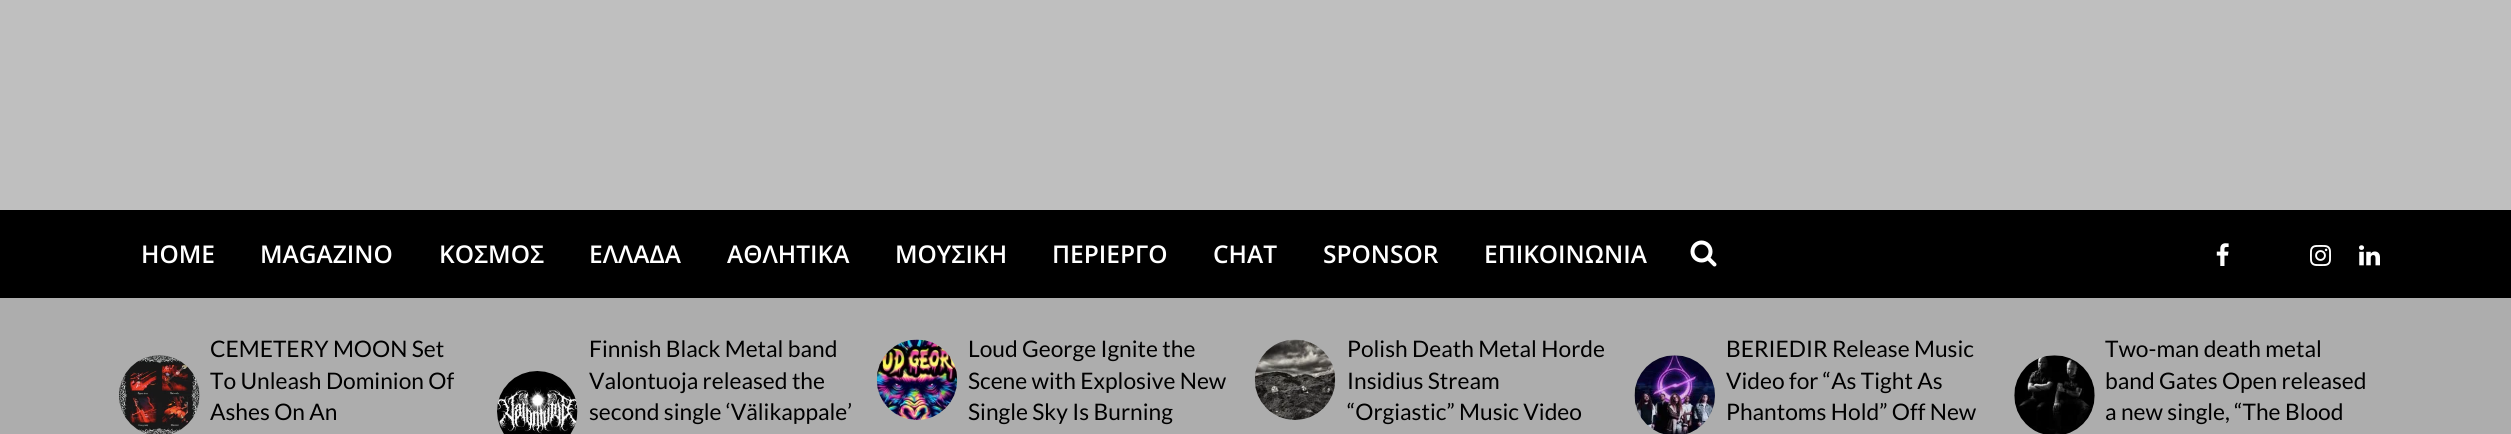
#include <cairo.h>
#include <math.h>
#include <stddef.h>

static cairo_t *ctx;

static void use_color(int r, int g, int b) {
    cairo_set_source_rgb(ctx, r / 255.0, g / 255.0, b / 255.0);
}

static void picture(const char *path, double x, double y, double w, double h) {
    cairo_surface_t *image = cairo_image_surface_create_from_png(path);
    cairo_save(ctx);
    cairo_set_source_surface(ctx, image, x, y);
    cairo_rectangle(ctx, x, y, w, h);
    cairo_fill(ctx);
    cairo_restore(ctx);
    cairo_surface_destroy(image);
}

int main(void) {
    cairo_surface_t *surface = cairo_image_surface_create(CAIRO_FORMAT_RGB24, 2511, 434);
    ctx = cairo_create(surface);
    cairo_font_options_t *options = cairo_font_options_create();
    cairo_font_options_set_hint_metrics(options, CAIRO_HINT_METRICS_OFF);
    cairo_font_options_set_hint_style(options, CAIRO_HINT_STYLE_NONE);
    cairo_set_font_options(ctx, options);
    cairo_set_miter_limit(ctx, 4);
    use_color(173, 173, 173);
    cairo_paint(ctx);
    use_color(191, 191, 191);
    cairo_rectangle(ctx, 0, 0, 2511, 210);
    cairo_fill(ctx);
    use_color(0, 0, 0);
    cairo_rectangle(ctx, 0, 210, 2511, 88);
    cairo_fill(ctx);
    cairo_select_font_face(ctx, "Open Sans SemiBold", CAIRO_FONT_SLANT_NORMAL, CAIRO_FONT_WEIGHT_NORMAL);
    cairo_set_font_size(ctx, 24.5);
    use_color(255, 255, 255);
    cairo_move_to(ctx, 141, 263);
    cairo_show_text(ctx, "HOME");
    cairo_move_to(ctx, 260, 263);
    cairo_show_text(ctx, "MAGAZINO");
    cairo_move_to(ctx, 439, 263);
    cairo_show_text(ctx, "ΚΟΣΜΟΣ");
    cairo_move_to(ctx, 589, 263);
    cairo_show_text(ctx, "ΕΛΛΑΔΑ");
    cairo_move_to(ctx, 727, 263);
    cairo_show_text(ctx, "ΑΘΛΗΤΙΚΑ");
    cairo_move_to(ctx, 895, 263);
    cairo_show_text(ctx, "ΜΟΥΣΙΚΗ");
    cairo_move_to(ctx, 1052, 263);
    cairo_show_text(ctx, "ΠΕΡΙΕΡΓΟ");
    cairo_move_to(ctx, 1213, 263);
    cairo_show_text(ctx, "CHAT");
    cairo_move_to(ctx, 1323, 263);
    cairo_show_text(ctx, "SPONSOR");
    cairo_move_to(ctx, 1484, 263);
    cairo_show_text(ctx, "ΕΠΙΚΟΙΝΩΝΙΑ");
    picture("img1.png", 1690, 240, 27, 27);
    picture("img2.png", 2216, 243, 13, 23);
    picture("img3.png", 2310, 245, 21, 21);
    picture("img4.png", 2359, 245, 21, 21);
    picture("img5.png", 119, 355, 81, 79);
    cairo_select_font_face(ctx, "Lato", CAIRO_FONT_SLANT_NORMAL, CAIRO_FONT_WEIGHT_NORMAL);
    cairo_set_font_size(ctx, 22.75);
    use_color(0, 0, 0);
    cairo_move_to(ctx, 210, 357);
    cairo_show_text(ctx, "CEMETERY MOON Set");
    cairo_move_to(ctx, 210, 389);
    cairo_show_text(ctx, "To Unleash Dominion Of");
    cairo_move_to(ctx, 210, 420);
    cairo_show_text(ctx, "Ashes On An");
    picture("img6.png", 497, 371, 81, 63);
    cairo_move_to(ctx, 589, 357);
    cairo_show_text(ctx, "Finnish Black Metal band");
    cairo_move_to(ctx, 589, 389);
    cairo_show_text(ctx, "Valontuoja released the");
    cairo_move_to(ctx, 589, 420);
    cairo_show_text(ctx, "second single ‘Välikappale’");
    picture("img7.png", 876, 339, 82, 81);
    cairo_move_to(ctx, 968, 357);
    cairo_show_text(ctx, "Loud George Ignite the");
    cairo_move_to(ctx, 968, 389);
    cairo_show_text(ctx, "Scene with Explosive New");
    cairo_move_to(ctx, 968, 420);
    cairo_show_text(ctx, "Single Sky Is Burning");
    picture("img8.png", 1254, 339, 82, 81);
    cairo_move_to(ctx, 1347, 357);
    cairo_show_text(ctx, "Polish Death Metal Horde");
    cairo_move_to(ctx, 1347, 389);
    cairo_show_text(ctx, "Insidius Stream");
    cairo_move_to(ctx, 1347, 420);
    cairo_show_text(ctx, "“Orgiastic” Music Video");
    picture("img9.png", 1634, 355, 81, 79);
    cairo_move_to(ctx, 1726, 357);
    cairo_show_text(ctx, "BERIEDIR Release Music");
    cairo_move_to(ctx, 1726, 389);
    cairo_show_text(ctx, "Video for “As Tight As");
    cairo_move_to(ctx, 1726, 420);
    cairo_show_text(ctx, "Phantoms Hold” Off New");
    picture("img10.png", 2014, 355, 81, 79);
    cairo_move_to(ctx, 2105, 357);
    cairo_show_text(ctx, "Two-man death metal");
    cairo_move_to(ctx, 2105, 389);
    cairo_show_text(ctx, "band Gates Open released");
    cairo_move_to(ctx, 2105, 420);
    cairo_show_text(ctx, "a new single, “The Blood");
    cairo_surface_write_to_png(surface, "result.png");
    cairo_font_options_destroy(options);
    cairo_destroy(ctx);
    cairo_surface_destroy(surface);
    return 0;
}
